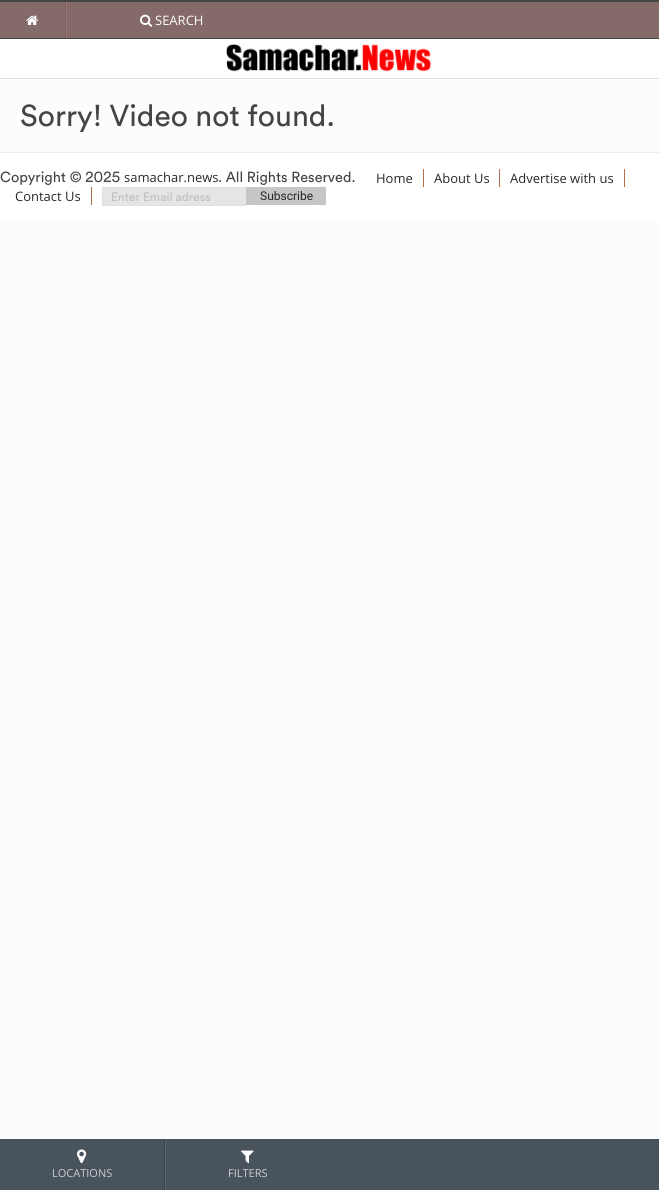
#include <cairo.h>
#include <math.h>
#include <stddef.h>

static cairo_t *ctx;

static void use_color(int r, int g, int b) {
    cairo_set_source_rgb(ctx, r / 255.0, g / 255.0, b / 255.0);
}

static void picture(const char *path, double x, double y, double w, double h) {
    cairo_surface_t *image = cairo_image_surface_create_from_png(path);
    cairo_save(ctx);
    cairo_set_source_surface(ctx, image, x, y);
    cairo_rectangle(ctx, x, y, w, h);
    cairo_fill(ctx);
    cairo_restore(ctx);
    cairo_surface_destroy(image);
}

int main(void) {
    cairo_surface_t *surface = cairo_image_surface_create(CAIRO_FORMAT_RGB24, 659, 1190);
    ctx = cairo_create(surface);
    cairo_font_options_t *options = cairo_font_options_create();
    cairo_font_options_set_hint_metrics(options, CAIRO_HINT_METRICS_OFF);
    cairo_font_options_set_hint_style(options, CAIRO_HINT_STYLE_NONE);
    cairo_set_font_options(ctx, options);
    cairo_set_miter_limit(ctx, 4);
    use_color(252, 252, 252);
    cairo_paint(ctx);
    use_color(71, 70, 70);
    cairo_rectangle(ctx, 0, 0, 659, 39);
    cairo_fill(ctx);
    use_color(132, 106, 104);
    cairo_rectangle(ctx, 0, 2, 659, 36);
    cairo_fill(ctx);
    use_color(123, 94, 92);
    cairo_rectangle(ctx, 65, 2, 1, 36);
    cairo_fill(ctx);
    picture("img1.png", 26, 15, 12, 10);
    use_color(152, 123, 120);
    cairo_rectangle(ctx, 66, 2, 1, 36);
    cairo_fill(ctx);
    picture("img2.png", 140, 14, 13, 13);
    cairo_select_font_face(ctx, "Open Sans", CAIRO_FONT_SLANT_NORMAL, CAIRO_FONT_WEIGHT_NORMAL);
    cairo_set_font_size(ctx, 13);
    use_color(255, 255, 255);
    cairo_move_to(ctx, 155, 25);
    cairo_show_text(ctx, "SEARCH");
    use_color(73, 83, 92);
    cairo_rectangle(ctx, 0, 1139, 659, 51);
    cairo_fill(ctx);
    use_color(56, 65, 72);
    cairo_rectangle(ctx, 164, 1139, 1, 51);
    cairo_fill(ctx);
    picture("img3.png", 77, 1149, 10, 15);
    cairo_set_font_size(ctx, 11);
    use_color(201, 206, 211);
    cairo_move_to(ctx, 52, 1177);
    cairo_show_text(ctx, "LOCATIONS");
    use_color(91, 102, 111);
    cairo_rectangle(ctx, 165, 1139, 1, 51);
    cairo_fill(ctx);
    picture("img4.png", 241, 1150, 13, 14);
    use_color(201, 206, 211);
    cairo_move_to(ctx, 228, 1177);
    cairo_show_text(ctx, "FILTERS");
    use_color(255, 255, 255);
    cairo_rectangle(ctx, 0, 39, 659, 39);
    cairo_fill(ctx);
    use_color(221, 221, 221);
    cairo_rectangle(ctx, 0, 78, 659, 1);
    cairo_fill(ctx);
    picture("img5.png", 226, 44, 206, 28);
    cairo_select_font_face(ctx, "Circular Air", CAIRO_FONT_SLANT_NORMAL, CAIRO_FONT_WEIGHT_NORMAL);
    cairo_set_font_size(ctx, 30);
    use_color(68, 68, 68);
    cairo_move_to(ctx, 20, 126);
    cairo_show_text(ctx, "Sorry! Video not found.");
    use_color(255, 255, 255);
    cairo_rectangle(ctx, 0, 153, 659, 68);
    cairo_fill(ctx);
    use_color(237, 237, 237);
    cairo_rectangle(ctx, 0, 152, 659, 1);
    cairo_fill(ctx);
    cairo_set_font_size(ctx, 14.5);
    use_color(68, 68, 68);
    cairo_move_to(ctx, 0, 182);
    cairo_show_text(ctx, "Copyright © 2025");
    cairo_select_font_face(ctx, "Open Sans", CAIRO_FONT_SLANT_NORMAL, CAIRO_FONT_WEIGHT_NORMAL);
    cairo_set_font_size(ctx, 13);
    use_color(40, 40, 40);
    cairo_move_to(ctx, 124, 182);
    cairo_show_text(ctx, "samachar.news");
    cairo_select_font_face(ctx, "Circular Air", CAIRO_FONT_SLANT_NORMAL, CAIRO_FONT_WEIGHT_NORMAL);
    cairo_set_font_size(ctx, 14.5);
    use_color(68, 68, 68);
    cairo_move_to(ctx, 218, 182);
    cairo_show_text(ctx, ". All Rights Reserved.");
    use_color(176, 110, 75);
    cairo_rectangle(ctx, 423, 169, 1, 18);
    cairo_fill(ctx);
    cairo_select_font_face(ctx, "Open Sans", CAIRO_FONT_SLANT_NORMAL, CAIRO_FONT_WEIGHT_NORMAL);
    cairo_set_font_size(ctx, 13);
    use_color(40, 40, 40);
    cairo_move_to(ctx, 376, 183);
    cairo_show_text(ctx, "Home");
    use_color(176, 110, 75);
    cairo_rectangle(ctx, 499, 169, 1, 18);
    cairo_fill(ctx);
    use_color(40, 40, 40);
    cairo_move_to(ctx, 434, 183);
    cairo_show_text(ctx, "About Us");
    use_color(176, 110, 75);
    cairo_rectangle(ctx, 624, 169, 1, 18);
    cairo_fill(ctx);
    use_color(40, 40, 40);
    cairo_move_to(ctx, 510, 183);
    cairo_show_text(ctx, "Advertise with us");
    use_color(176, 110, 75);
    cairo_rectangle(ctx, 91, 187, 1, 18);
    cairo_fill(ctx);
    use_color(40, 40, 40);
    cairo_move_to(ctx, 15, 201);
    cairo_show_text(ctx, "Contact Us");
    use_color(229, 229, 229);
    cairo_rectangle(ctx, 103, 188, 143, 17);
    cairo_fill(ctx);
    use_color(224, 224, 224);
    cairo_rectangle(ctx, 102, 187, 144, 1);
    cairo_fill(ctx);
    cairo_rectangle(ctx, 102, 205, 144, 1);
    cairo_fill(ctx);
    cairo_rectangle(ctx, 102, 187, 1, 19);
    cairo_fill(ctx);
    cairo_select_font_face(ctx, "Circular Air", CAIRO_FONT_SLANT_NORMAL, CAIRO_FONT_WEIGHT_NORMAL);
    cairo_set_font_size(ctx, 12);
    use_color(191, 191, 191);
    cairo_move_to(ctx, 111, 201);
    cairo_show_text(ctx, "Enter Email adress");
    use_color(198, 198, 198);
    cairo_rectangle(ctx, 246, 187, 80, 18);
    cairo_fill(ctx);
    cairo_select_font_face(ctx, "Roboto", CAIRO_FONT_SLANT_NORMAL, CAIRO_FONT_WEIGHT_NORMAL);
    use_color(40, 40, 40);
    cairo_move_to(ctx, 260, 200);
    cairo_show_text(ctx, "Subscribe");
    cairo_surface_write_to_png(surface, "result.png");
    cairo_font_options_destroy(options);
    cairo_destroy(ctx);
    cairo_surface_destroy(surface);
    return 0;
}
